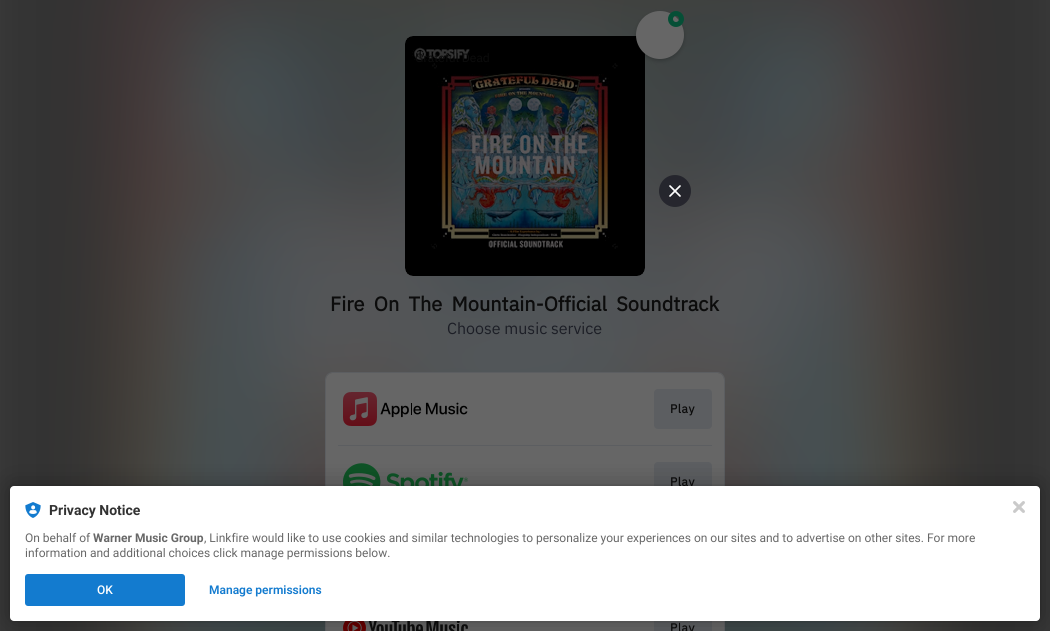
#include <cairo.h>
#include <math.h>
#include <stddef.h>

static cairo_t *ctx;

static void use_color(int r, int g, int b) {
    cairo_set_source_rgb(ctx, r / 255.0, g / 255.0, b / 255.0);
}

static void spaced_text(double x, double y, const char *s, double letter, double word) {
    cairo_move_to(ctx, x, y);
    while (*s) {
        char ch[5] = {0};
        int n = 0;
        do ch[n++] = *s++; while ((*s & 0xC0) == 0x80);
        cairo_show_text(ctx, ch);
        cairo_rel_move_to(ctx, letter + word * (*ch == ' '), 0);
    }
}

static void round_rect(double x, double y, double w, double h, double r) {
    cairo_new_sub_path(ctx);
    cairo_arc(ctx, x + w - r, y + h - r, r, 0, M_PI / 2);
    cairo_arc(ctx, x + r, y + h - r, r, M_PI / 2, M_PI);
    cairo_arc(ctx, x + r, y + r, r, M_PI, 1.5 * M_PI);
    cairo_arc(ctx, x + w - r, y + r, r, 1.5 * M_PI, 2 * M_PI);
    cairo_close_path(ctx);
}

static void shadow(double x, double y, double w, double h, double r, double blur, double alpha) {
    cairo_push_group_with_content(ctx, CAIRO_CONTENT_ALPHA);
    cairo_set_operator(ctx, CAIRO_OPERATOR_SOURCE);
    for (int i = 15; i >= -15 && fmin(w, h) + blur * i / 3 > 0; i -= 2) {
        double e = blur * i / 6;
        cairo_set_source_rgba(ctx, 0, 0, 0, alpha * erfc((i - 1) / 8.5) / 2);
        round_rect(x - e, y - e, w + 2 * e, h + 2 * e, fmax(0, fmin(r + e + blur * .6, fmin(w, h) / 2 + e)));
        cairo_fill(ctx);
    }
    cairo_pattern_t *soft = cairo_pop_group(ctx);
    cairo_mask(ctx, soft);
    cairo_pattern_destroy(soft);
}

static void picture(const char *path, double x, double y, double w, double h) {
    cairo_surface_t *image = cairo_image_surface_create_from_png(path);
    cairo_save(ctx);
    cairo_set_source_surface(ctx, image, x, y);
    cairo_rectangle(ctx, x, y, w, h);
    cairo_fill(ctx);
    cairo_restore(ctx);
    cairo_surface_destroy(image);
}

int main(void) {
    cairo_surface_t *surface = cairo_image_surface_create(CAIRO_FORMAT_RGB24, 1050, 631);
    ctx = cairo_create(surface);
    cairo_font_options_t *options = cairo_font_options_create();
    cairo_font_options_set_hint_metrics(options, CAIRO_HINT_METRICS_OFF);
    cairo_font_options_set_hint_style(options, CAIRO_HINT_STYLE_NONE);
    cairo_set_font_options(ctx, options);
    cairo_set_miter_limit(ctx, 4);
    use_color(102, 102, 102);
    cairo_paint(ctx);
    picture("img1.png", 0, 0, 1050, 631);
    picture("img2.png", 405, 36, 240, 240);
    use_color(0, 0, 0);
    shadow(636, 13, 48, 48, 24, 2, 0.2);
    use_color(102, 102, 102);
    cairo_arc(ctx, 660, 35, 24, 0, 2 * M_PI);
    cairo_fill(ctx);
    cairo_arc(ctx, 676, 19, 5.5, 0, 2 * M_PI);
    use_color(5, 79, 54);
    cairo_set_line_width(ctx, 5);
    cairo_stroke(ctx);
    cairo_set_source_rgba(ctx, 0.094, 0.09, 0.129, 0.7);
    cairo_arc(ctx, 675, 191, 16, 0, 2 * M_PI);
    cairo_fill(ctx);
    cairo_new_path(ctx);
    cairo_move_to(ctx, 670, 186);
    cairo_line_to(ctx, 680, 196);
    cairo_move_to(ctx, 670, 196);
    cairo_line_to(ctx, 680, 186);
    use_color(255, 255, 255);
    cairo_set_line_width(ctx, 1.7);
    cairo_set_line_cap(ctx, CAIRO_LINE_CAP_ROUND);
    cairo_set_line_join(ctx, CAIRO_LINE_JOIN_ROUND);
    cairo_stroke(ctx);
    cairo_select_font_face(ctx, "IBM Plex Sans", CAIRO_FONT_SLANT_NORMAL, CAIRO_FONT_WEIGHT_NORMAL);
    cairo_set_font_size(ctx, 12);
    use_color(12, 12, 12);
    cairo_move_to(ctx, 415, 62);
    cairo_show_text(ctx, "Grateful Dead");
    cairo_select_font_face(ctx, "IBM Plex Sans", CAIRO_FONT_SLANT_NORMAL, CAIRO_FONT_WEIGHT_BOLD);
    cairo_set_font_size(ctx, 20);
    spaced_text(330, 311, "Fire On The Mountain-Official Soundtrack", 0, 4.5);
    cairo_select_font_face(ctx, "IBM Plex Sans", CAIRO_FONT_SLANT_NORMAL, CAIRO_FONT_WEIGHT_NORMAL);
    cairo_set_font_size(ctx, 16);
    use_color(28, 30, 38);
    cairo_move_to(ctx, 447, 334);
    cairo_show_text(ctx, "Choose music service");
    round_rect(325.5, 372.5, 399, 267, 7.5);
    use_color(92, 94, 97);
    cairo_set_line_width(ctx, 1);
    cairo_set_line_cap(ctx, CAIRO_LINE_CAP_BUTT);
    cairo_set_line_join(ctx, CAIRO_LINE_JOIN_MITER);
    cairo_stroke(ctx);
    use_color(102, 102, 102);
    round_rect(326, 373, 398, 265, 7);
    cairo_fill(ctx);
    picture("img3.png", 343, 392, 125, 34);
    use_color(92, 94, 97);
    round_rect(654, 389, 58, 40, 4);
    cairo_fill(ctx);
    cairo_select_font_face(ctx, "IBM Plex Sans", CAIRO_FONT_SLANT_NORMAL, CAIRO_FONT_WEIGHT_BOLD);
    cairo_set_font_size(ctx, 12);
    use_color(12, 12, 12);
    spaced_text(670, 413, "Play", 0.5, 0);
    use_color(92, 94, 97);
    cairo_rectangle(ctx, 338, 445, 374, 1);
    cairo_fill(ctx);
    picture("img4.png", 343, 463, 125, 23);
    round_rect(654, 462, 58, 40, 4);
    cairo_fill(ctx);
    use_color(12, 12, 12);
    spaced_text(670, 486, "Play", 0.5, 0);
    picture("img5.png", 343, 621, 125, 10);
    use_color(92, 94, 97);
    cairo_rectangle(ctx, 654, 621, 58, 10);
    cairo_fill(ctx);
    use_color(12, 12, 12);
    spaced_text(670, 632, "Play", 0.5, 0);
    use_color(0, 0, 0);
    shadow(10, 486, 1030, 135, 4, 2, 0.12);
    shadow(10, 486, 1030, 135, 4, 12, 0.3);
    use_color(255, 255, 255);
    round_rect(10, 486, 1030, 135, 4);
    cairo_fill(ctx);
    picture("img6.png", 25, 502, 16, 16);
    cairo_select_font_face(ctx, "Roboto", CAIRO_FONT_SLANT_NORMAL, CAIRO_FONT_WEIGHT_BOLD);
    cairo_set_font_size(ctx, 14);
    use_color(50, 50, 50);
    cairo_move_to(ctx, 49, 515);
    cairo_show_text(ctx, "Privacy Notice");
    cairo_select_font_face(ctx, "Roboto", CAIRO_FONT_SLANT_NORMAL, CAIRO_FONT_WEIGHT_NORMAL);
    cairo_set_font_size(ctx, 12);
    use_color(104, 104, 104);
    cairo_move_to(ctx, 25, 542);
    cairo_show_text(ctx, "On behalf of");
    cairo_select_font_face(ctx, "Roboto", CAIRO_FONT_SLANT_NORMAL, CAIRO_FONT_WEIGHT_BOLD);
    cairo_move_to(ctx, 93, 542);
    cairo_show_text(ctx, "Warner Music Group");
    cairo_select_font_face(ctx, "Roboto", CAIRO_FONT_SLANT_NORMAL, CAIRO_FONT_WEIGHT_NORMAL);
    cairo_move_to(ctx, 204, 542);
    cairo_show_text(ctx, ", Linkfire would like to use cookies and similar technologies to personalize your experiences on our sites and to advertise on other sites. For more");
    cairo_move_to(ctx, 25, 557);
    cairo_show_text(ctx, "information and additional choices click manage permissions below.");
    use_color(19, 123, 207);
    round_rect(25, 574, 160, 32, 3);
    cairo_fill(ctx);
    cairo_select_font_face(ctx, "Roboto Medium", CAIRO_FONT_SLANT_NORMAL, CAIRO_FONT_WEIGHT_NORMAL);
    use_color(255, 255, 255);
    cairo_move_to(ctx, 97, 594);
    cairo_show_text(ctx, "OK");
    cairo_select_font_face(ctx, "Roboto SemiBold", CAIRO_FONT_SLANT_NORMAL, CAIRO_FONT_WEIGHT_NORMAL);
    use_color(19, 123, 207);
    cairo_move_to(ctx, 209, 594);
    cairo_show_text(ctx, "Manage permissions");
    picture("img7.png", 1013, 501, 12, 12);
    cairo_surface_write_to_png(surface, "result.png");
    cairo_font_options_destroy(options);
    cairo_destroy(ctx);
    cairo_surface_destroy(surface);
    return 0;
}
